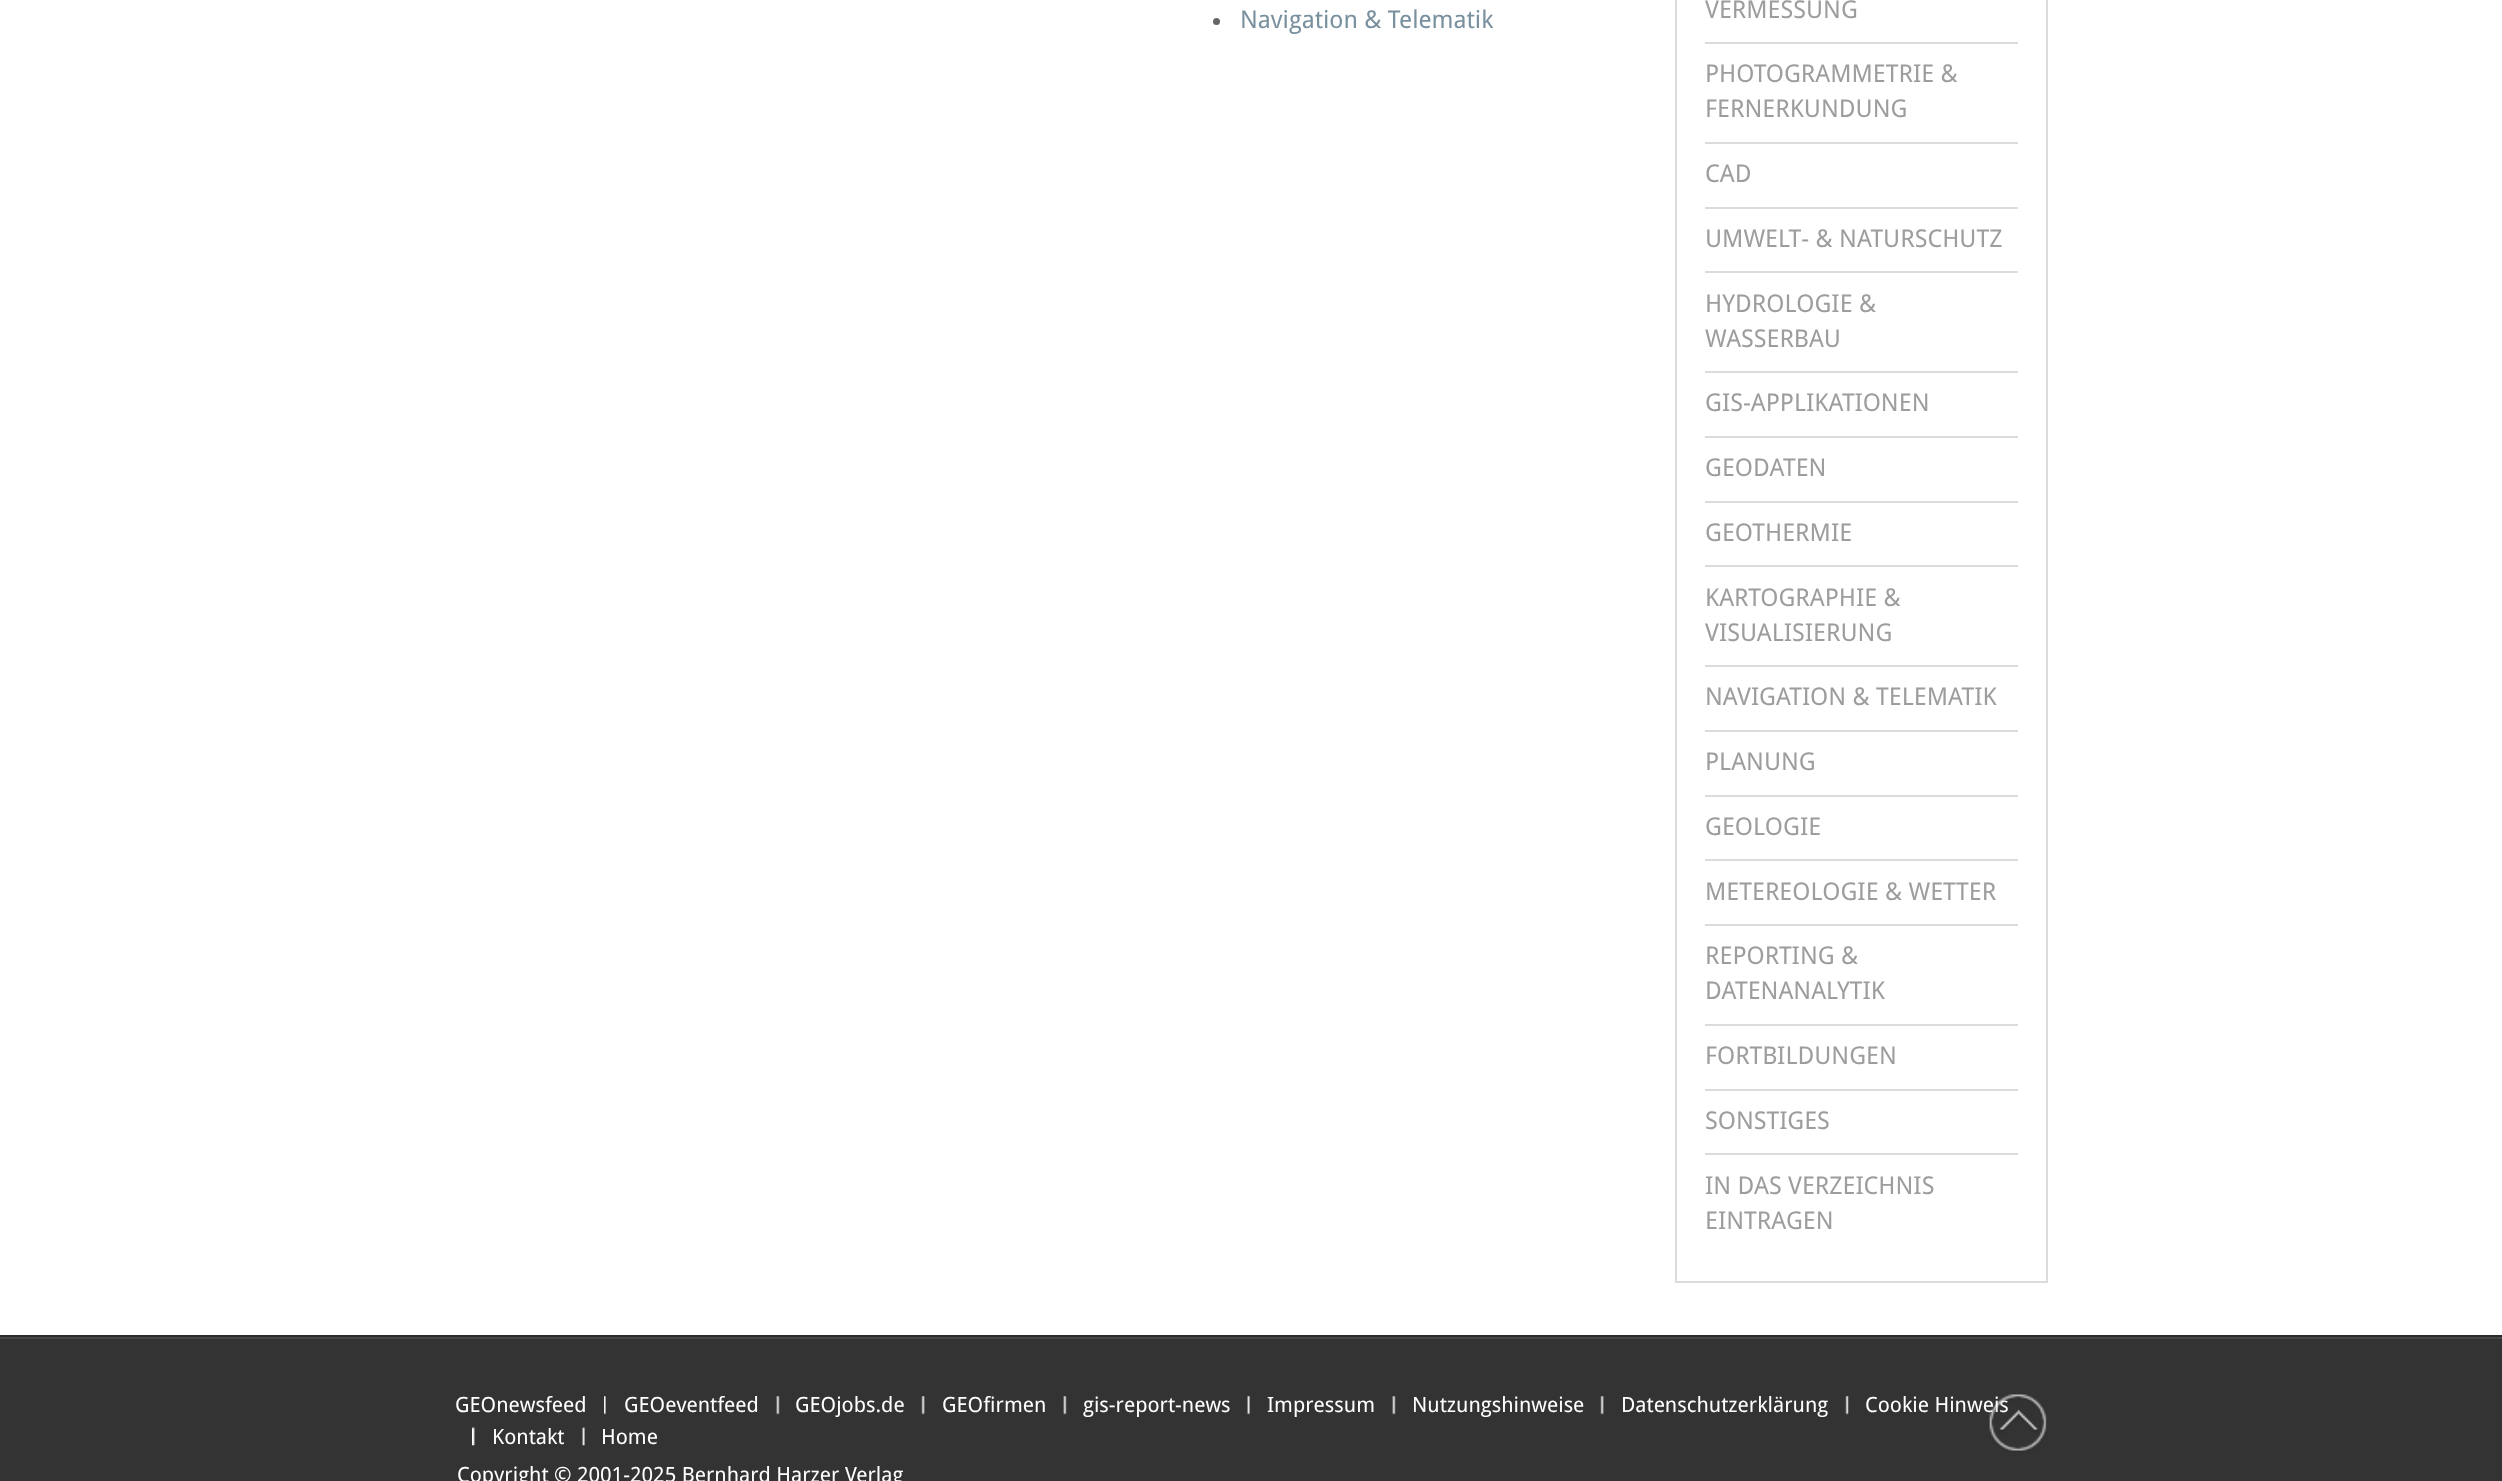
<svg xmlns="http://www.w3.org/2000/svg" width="2502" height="1481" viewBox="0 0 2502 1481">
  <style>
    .t1 { font: 24.5px Droid Sans; fill: #79909f; }
    .t2 { font: 24.5px Droid Sans; fill: #9d9d9d; }
    .t3 { font: 21px Droid Sans; fill: #fff; }
  </style>
  <rect width="100%" height="100%" fill="#333"/>
  <rect x="0" y="0" width="2502" height="1335" fill="#fff"/>
  <circle cx="1216.5" cy="21.5" r="3.5" fill="#666"/>
  <text x="1240" y="28" class="t1">Navigation &amp; Telematik</text>
  <rect x="1676" y="-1" width="371" height="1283" fill="none" stroke="#dbdbdb" stroke-width="2"/>
  <text x="1705" y="18" class="t2">VERMESSUNG</text>
  <rect x="1705" y="42" width="313" height="2" fill="#dbdbdb"/>
  <text x="1705" y="82" class="t2">PHOTOGRAMMETRIE &amp;</text>
  <text x="1705" y="117" class="t2">FERNERKUNDUNG</text>
  <rect x="1705" y="142" width="313" height="2" fill="#dbdbdb"/>
  <text x="1705" y="182" class="t2">CAD</text>
  <rect x="1705" y="207" width="313" height="2" fill="#dbdbdb"/>
  <text x="1705" y="247" class="t2">UMWELT- &amp; NATURSCHUTZ</text>
  <rect x="1705" y="271" width="313" height="2" fill="#dbdbdb"/>
  <text x="1705" y="312" class="t2">HYDROLOGIE &amp;</text>
  <text x="1705" y="347" class="t2">WASSERBAU</text>
  <rect x="1705" y="371" width="313" height="2" fill="#dbdbdb"/>
  <text x="1705" y="411" class="t2">GIS-APPLIKATIONEN</text>
  <rect x="1705" y="436" width="313" height="2" fill="#dbdbdb"/>
  <text x="1705" y="476" class="t2">GEODATEN</text>
  <rect x="1705" y="501" width="313" height="2" fill="#dbdbdb"/>
  <text x="1705" y="541" class="t2">GEOTHERMIE</text>
  <rect x="1705" y="565" width="313" height="2" fill="#dbdbdb"/>
  <text x="1705" y="606" class="t2">KARTOGRAPHIE &amp;</text>
  <text x="1705" y="641" class="t2">VISUALISIERUNG</text>
  <rect x="1705" y="665" width="313" height="2" fill="#dbdbdb"/>
  <text x="1705" y="705" class="t2">NAVIGATION &amp; TELEMATIK</text>
  <rect x="1705" y="730" width="313" height="2" fill="#dbdbdb"/>
  <text x="1705" y="770" class="t2">PLANUNG</text>
  <rect x="1705" y="795" width="313" height="2" fill="#dbdbdb"/>
  <text x="1705" y="835" class="t2">GEOLOGIE</text>
  <rect x="1705" y="859" width="313" height="2" fill="#dbdbdb"/>
  <text x="1705" y="900" class="t2">METEREOLOGIE &amp; WETTER</text>
  <rect x="1705" y="924" width="313" height="2" fill="#dbdbdb"/>
  <text x="1705" y="964" class="t2">REPORTING &amp;</text>
  <text x="1705" y="999" class="t2">DATENANALYTIK</text>
  <rect x="1705" y="1024" width="313" height="2" fill="#dbdbdb"/>
  <text x="1705" y="1064" class="t2">FORTBILDUNGEN</text>
  <rect x="1705" y="1089" width="313" height="2" fill="#dbdbdb"/>
  <text x="1705" y="1129" class="t2">SONSTIGES</text>
  <rect x="1705" y="1153" width="313" height="2" fill="#dbdbdb"/>
  <text x="1705" y="1194" class="t2">IN DAS VERZEICHNIS</text>
  <text x="1705" y="1229" class="t2">EINTRAGEN</text>
  <rect x="0" y="1337" width="2502" height="2" fill="#474747"/>
  <rect x="0" y="1335" width="2502" height="2" fill="#2b2b2b"/>
  <text x="455" y="1412" class="t3">GEOnewsfeed</text>
  <image x="604" y="1396" width="2" height="19" href="images/1.png"/>
  <text x="624" y="1412" class="t3">GEOeventfeed</text>
  <image x="776" y="1396" width="4" height="19" href="images/2.png"/>
  <text x="795" y="1412" class="t3">GEOjobs.de</text>
  <image x="921" y="1396" width="4" height="19" href="images/3.png"/>
  <text x="942" y="1412" class="t3">GEOfirmen</text>
  <image x="1063" y="1396" width="4" height="19" href="images/2.png"/>
  <text x="1083" y="1412" class="t3">gis-report-news</text>
  <image x="1247" y="1396" width="3" height="19" href="images/4.png"/>
  <text x="1267" y="1412" class="t3">Impressum</text>
  <image x="1392" y="1396" width="4" height="19" href="images/2.png"/>
  <text x="1412" y="1412" class="t3">Nutzungshinweise</text>
  <image x="1600" y="1396" width="4" height="19" href="images/3.png"/>
  <text x="1621" y="1412" class="t3">Datenschutzerklärung</text>
  <image x="1845" y="1396" width="4" height="19" href="images/5.png"/>
  <text x="1865" y="1412" class="t3">Cookie Hinweis</text>
  <image x="472" y="1427" width="3" height="19" href="images/6.png"/>
  <text x="492" y="1444" class="t3">Kontakt</text>
  <image x="582" y="1427" width="3" height="19" href="images/7.png"/>
  <text x="601" y="1444" class="t3">Home</text>
  <image x="1989" y="1394" width="58" height="58" href="images/8.png"/>
  <text x="457" y="1482" class="t3">Copyright © 2001-2025 Bernhard Harzer Verlag</text>
</svg>
